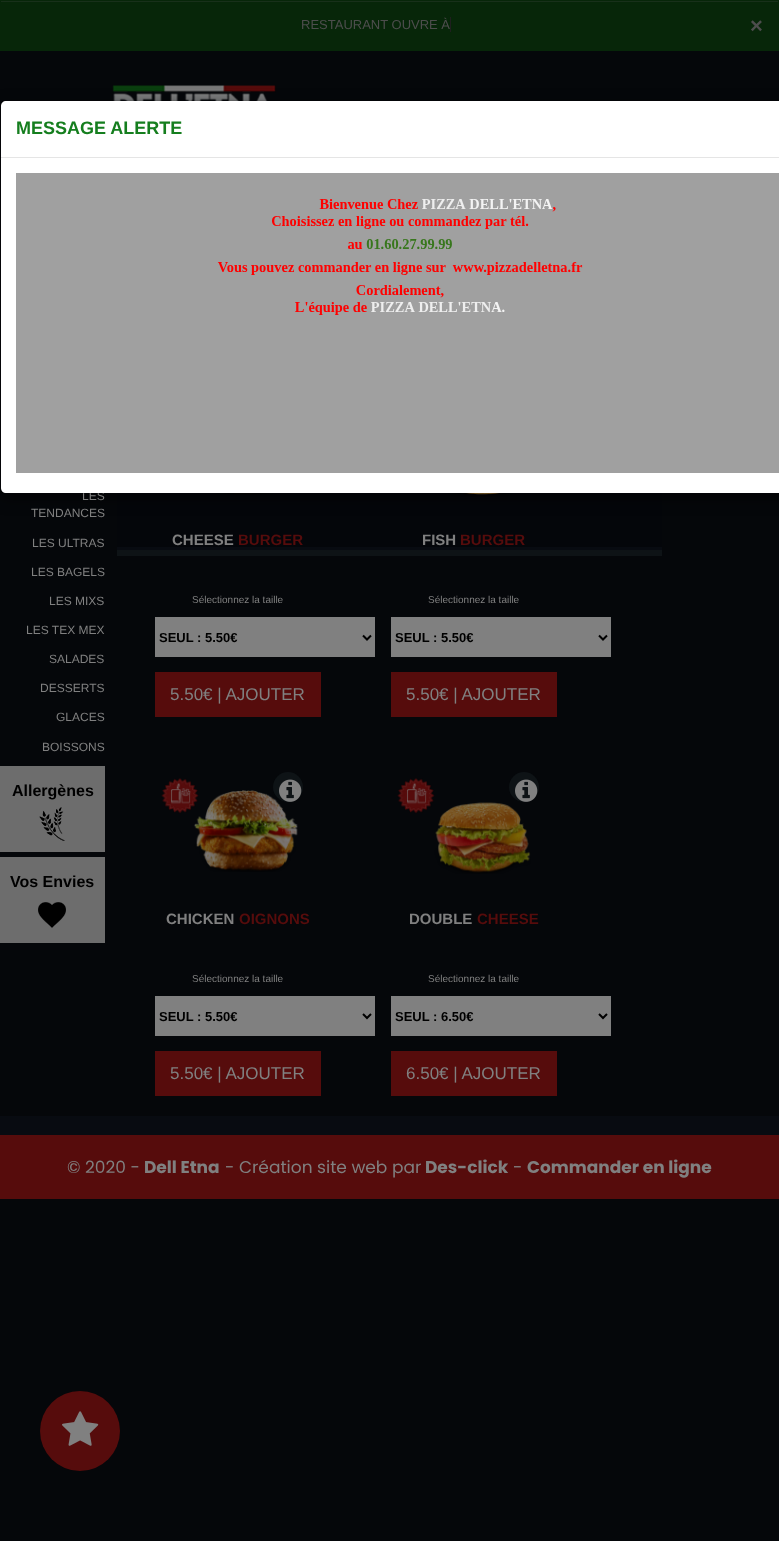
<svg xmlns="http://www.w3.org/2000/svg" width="779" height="1541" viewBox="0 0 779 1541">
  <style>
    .t1 { font: 13px Liberation Sans; fill: #4d4d4d; }
    .t2 { font: bold 22px Liberation Sans; fill: #4d4d4d; }
    .t3 { font: 12px Liberation Sans; fill: #808080; }
    .t4 { font: bold 18px Liberation Sans; fill: #157e1e; }
    .t5 { font: bold 16px Liberation Sans; fill: #000; }
    .t6 { font: bold 15px Liberation Sans; fill: #808080; }
    .t7 { font: bold 15px Liberation Sans; fill: #560c0c; }
    .t8 { font: 10px Liberation Sans; fill: #808080; }
    .t9 { font: bold 13px Liberation Sans; fill: #000; }
    .t10 { font: 17px Liberation Sans; fill: #808080; }
    .t11 { font: 17px Poppins; fill: #808080; }
    .t12 { font: bold 17px Poppins; fill: #808080; }
  </style>
  <defs>
    <clipPath id="clip1"><path d="M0 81H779V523H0ZM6 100H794C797.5 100 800 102.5 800 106V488C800 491.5 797.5 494 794 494H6C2.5 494 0 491.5 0 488V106C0 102.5 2.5 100 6 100Z" clip-rule="evenodd"/></clipPath>
  </defs>
  <rect width="100%" height="100%" fill="#05070a"/>
  <rect x="0" y="0" width="779" height="51" fill="#072609"/>
  <rect x="1" y="1" width="777" height="1" fill="#18301a"/>
  <text x="301" y="29" class="t1">RESTAURANT OUVRE À</text>
  <rect x="450" y="17" width="1" height="15" fill="#1f1f1f"/>
  <text x="750" y="33" class="t2">×</text>
  <image x="117" y="100" width="545" height="450" href="images/2.png"/>
  <image x="112" y="85" width="164" height="16" href="images/3.png"/>
  <image x="216" y="493" width="58" height="2" href="images/6.png"/>
  <image x="448" y="493" width="65" height="4" href="images/7.png"/>
  <g clip-path="url(#clip1)">
    <rect x="0" y="105" width="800" height="394" rx="6" fill="#00000080" filter="blur(7.5px)"/>
  </g>
  <text x="82" y="500" class="t3">LES</text>
  <path d="M6 101H779V493H6C3 493 1 491 1 488V106C1 103 3 101 6 101Z" fill="#fff"/>
  <rect x="0.5" y="100.5" width="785" height="393" rx="5.5" fill="none" stroke="#00000033"/>
  <rect x="1" y="157" width="778" height="1" fill="#e5e5e5"/>
  <text x="16" y="134" class="t4">MESSAGE ALERTE</text>
  <image x="16" y="173" width="763" height="300" href="images/1.png"/>
  <rect x="117" y="550" width="545" height="6" fill="#0e1316"/>
  <text x="31" y="517" class="t3">TENDANCES</text>
  <text x="32" y="547" class="t3">LES ULTRAS</text>
  <text x="31" y="576" class="t3">LES BAGELS</text>
  <text x="49" y="605" class="t3">LES MIXS</text>
  <text x="26" y="634" class="t3">LES TEX MEX</text>
  <text x="49" y="663" class="t3">SALADES</text>
  <text x="40" y="692" class="t3">DESSERTS</text>
  <text x="56" y="721" class="t3">GLACES</text>
  <text x="42" y="751" class="t3">BOISSONS</text>
  <rect x="0" y="766" width="105" height="86" fill="#6d6d6d"/>
  <text x="12" y="796" class="t5">Allergènes</text>
  <image x="39" y="807" width="26" height="34" href="images/4.png"/>
  <rect x="0" y="857" width="105" height="86" fill="#6d6d6d"/>
  <text x="10" y="887" class="t5">Vos Envies</text>
  <image x="38" y="902" width="28" height="26" href="images/5.png"/>
  <text x="172" y="545" class="t6">CHEESE</text>
  <text x="238" y="545" class="t7">BURGER</text>
  <text x="192" y="603" class="t8">Sélectionnez la taille</text>
  <rect x="155" y="617" width="220" height="40" fill="#808080"/>
  <path d="M363 635.5L367 639.5L371 635.5" fill="none" stroke="#000" stroke-width="2"/>
  <text x="159" y="642" class="t9">SEUL : 5.50€</text>
  <rect x="155" y="672" width="166" height="45" fill="#560c0c"/>
  <text x="170" y="700" class="t10">5.50€ | AJOUTER</text>
  <text x="422" y="545" class="t6">FISH</text>
  <text x="460" y="545" class="t7">BURGER</text>
  <text x="428" y="603" class="t8">Sélectionnez la taille</text>
  <rect x="391" y="617" width="220" height="40" fill="#808080"/>
  <path d="M599 635.5L603 639.5L607 635.5" fill="none" stroke="#000" stroke-width="2"/>
  <text x="395" y="642" class="t9">SEUL : 5.50€</text>
  <rect x="391" y="672" width="166" height="45" fill="#560c0c"/>
  <text x="406" y="700" class="t10">5.50€ | AJOUTER</text>
  <image x="161" y="778" width="137" height="94" href="images/9.png"/>
  <circle cx="288" cy="787" r="15" fill="#0e1316"/>
  <image x="279" y="779" width="23" height="23" href="images/8.png"/>
  <text x="166" y="924" class="t6">CHICKEN</text>
  <text x="239" y="924" class="t7">OIGNONS</text>
  <text x="192" y="982" class="t8">Sélectionnez la taille</text>
  <rect x="155" y="996" width="220" height="40" fill="#808080"/>
  <path d="M363 1014L367 1018L371 1014" fill="none" stroke="#000" stroke-width="2"/>
  <text x="159" y="1021" class="t9">SEUL : 5.50€</text>
  <rect x="155" y="1051" width="166" height="45" fill="#560c0c"/>
  <text x="170" y="1079" class="t10">5.50€ | AJOUTER</text>
  <image x="397" y="778" width="134" height="96" href="images/10.png"/>
  <circle cx="524" cy="787" r="15" fill="#0e1316"/>
  <image x="515" y="779" width="23" height="23" href="images/8.png"/>
  <text x="409" y="924" class="t6">DOUBLE</text>
  <text x="477" y="924" class="t7">CHEESE</text>
  <text x="428" y="982" class="t8">Sélectionnez la taille</text>
  <rect x="391" y="996" width="220" height="40" fill="#808080"/>
  <path d="M599 1014L603 1018L607 1014" fill="none" stroke="#000" stroke-width="2"/>
  <text x="395" y="1021" class="t9">SEUL : 6.50€</text>
  <rect x="391" y="1051" width="166" height="45" fill="#560c0c"/>
  <text x="406" y="1079" class="t10">6.50€ | AJOUTER</text>
  <circle cx="80" cy="1431" r="40" fill="#560c0c"/>
  <image x="62" y="1411" width="37" height="35" href="images/11.png"/>
  <rect x="0" y="1116" width="779" height="19" fill="#080b11"/>
  <rect x="0" y="1135" width="779" height="64" fill="#560c0c"/>
  <text x="67" y="1173" class="t11">© 2020 -</text>
  <text x="144" y="1173" class="t12">Dell Etna</text>
  <text x="225" y="1173" class="t11">- Création site web par</text>
  <text x="425" y="1173" class="t12">Des-click</text>
  <text x="513" y="1173" class="t11">-</text>
  <text x="527" y="1173" class="t12">Commander en ligne</text>
</svg>
